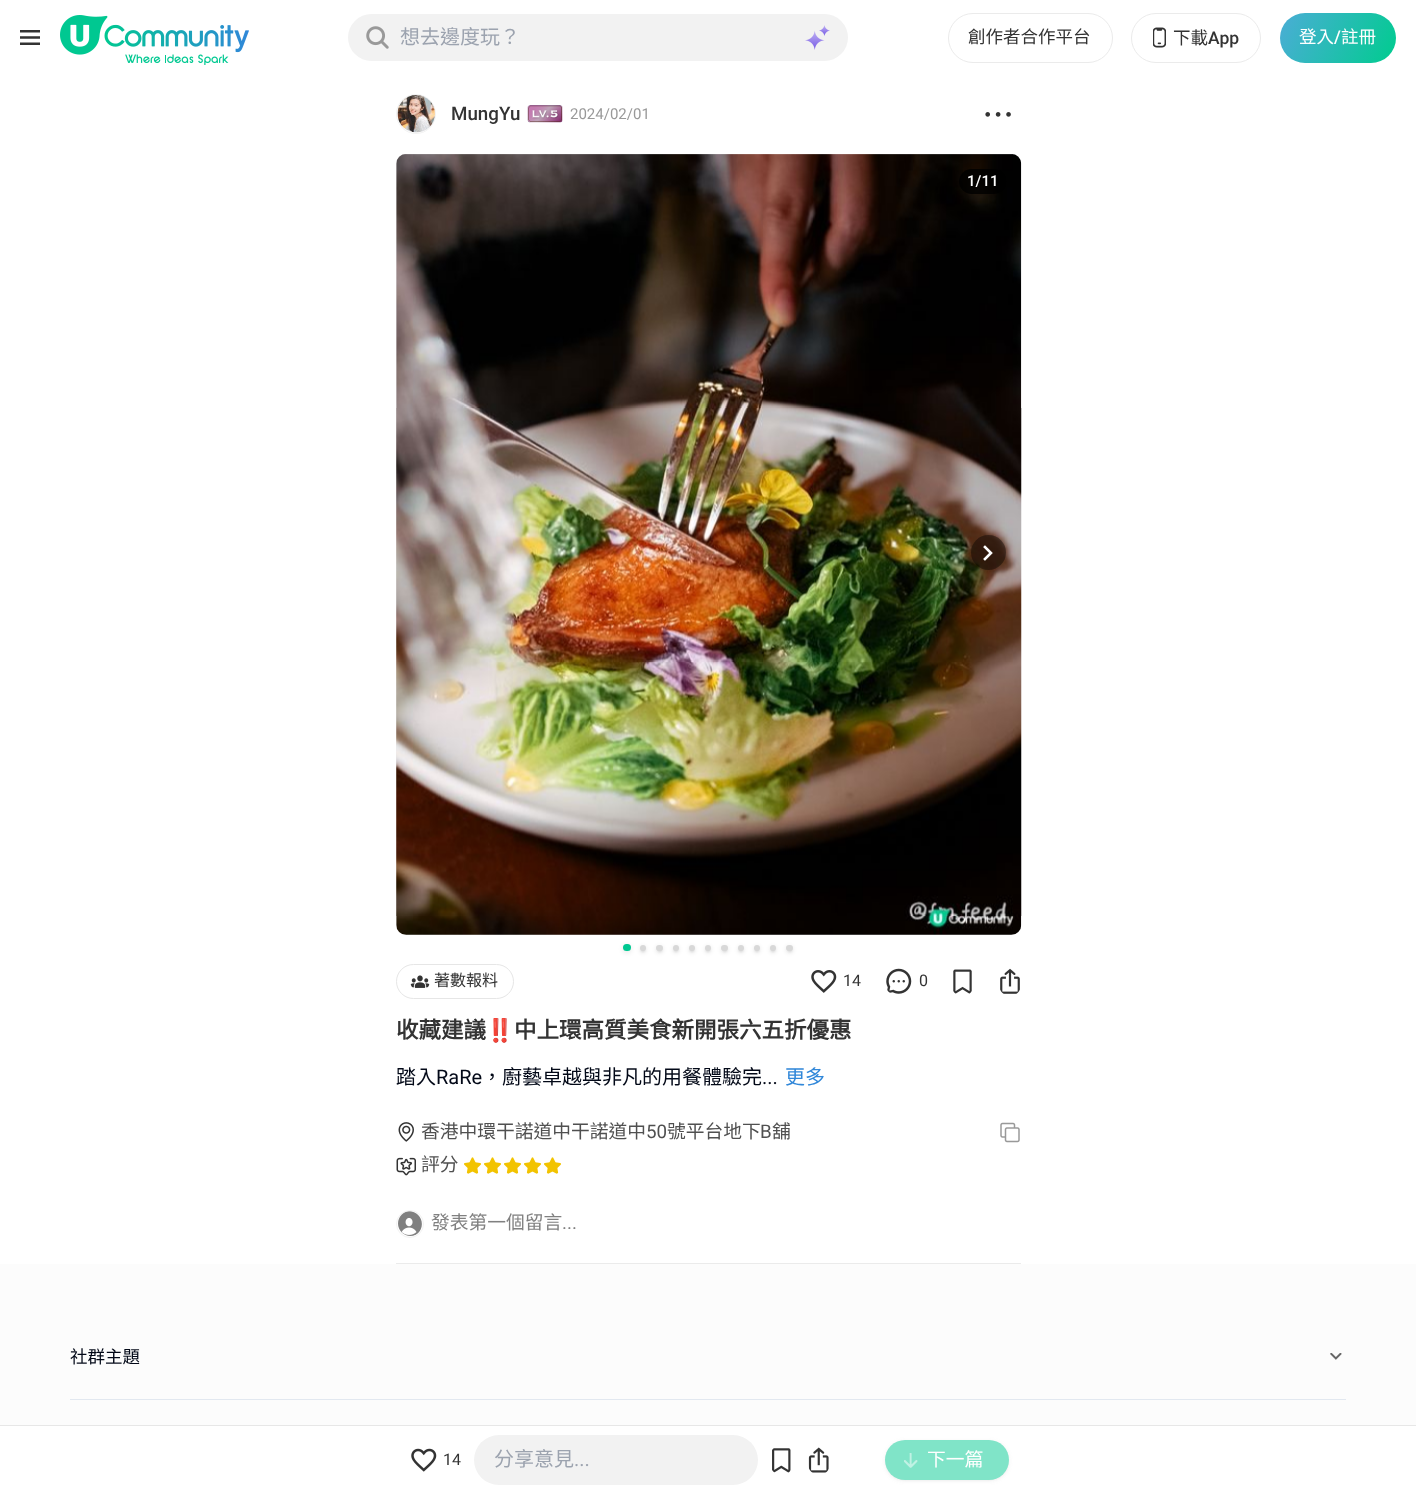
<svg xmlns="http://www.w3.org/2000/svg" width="1416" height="1493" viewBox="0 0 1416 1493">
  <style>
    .t1 { font: 20px Noto Sans CJK HK; fill: #9ca3af; }
    .t2 { font: 17.5px Noto Sans CJK HK; fill: #333; }
    .t3 { font: 500 17.5px Roboto; fill: #333; }
    .t4 { font: 17.5px Noto Sans CJK HK; fill: #fff; }
    .t5 { font: 500 17.5px Roboto; fill: #fff; }
    .t6 { font: 500 18.75px Roboto; fill: #333; }
    .t7 { font: 15px Roboto; fill: #999; }
    .t8 { font: 500 15px Roboto; fill: #fff; }
    .t9 { font: 16px Noto Sans CJK HK; fill: #333; }
    .t10 { font: 16px Roboto; fill: #333; }
    .t11 { font: bold 22.5px Noto Sans CJK HK; fill: #333; }
    .t12 { font: bold 22.5px Noto Color Emoji; fill: #333; }
    .t13 { font: 20px Noto Sans CJK HK; fill: #020817; }
    .t14 { font: 20px Roboto; fill: #020817; }
    .t15 { font: 20px Noto Sans CJK HK; fill: #3087d9; }
    .t16 { font: 18.75px Noto Sans CJK HK; fill: #505050; }
    .t17 { font: 18.75px Roboto; fill: #505050; }
    .t18 { font: 18.75px Noto Sans CJK HK; fill: #808080; }
    .t19 { font: 18.75px Roboto; fill: #808080; }
    .t20 { font: 17.5px Noto Sans CJK HK; fill: #020817; }
    .t21 { font: 20px Roboto; fill: #9ca3af; }
    .t22 { font: 18.75px Noto Sans CJK HK; fill: #fff; }
  </style>
  <defs>
    <linearGradient id="g1" gradientUnits="userSpaceOnUse" x1="1281" y1="11" x2="1395" y2="64"><stop offset="0" stop-color="#4badd6"/><stop offset="1" stop-color="#00cc8f"/></linearGradient>
  </defs>
  <rect width="100%" height="100%" fill="#fff"/>
  <image x="20" y="30" width="20" height="15" href="images/1.png"/>
  <image x="60" y="15" width="189" height="50" href="images/2.png"/>
  <rect x="348" y="14" width="500" height="47" rx="23.5" fill="#f2f2f2"/>
  <image x="366" y="26" width="23" height="23" href="images/3.png"/>
  <text x="400" y="44" class="t1">想去邊度玩？</text>
  <image x="805" y="25" width="25" height="25" href="images/4.png"/>
  <rect x="948.5" y="13.5" width="164" height="49" rx="24.5" fill="none" stroke="#ebebeb"/>
  <text x="968" y="43" class="t2">創作者合作平台</text>
  <rect x="1131.5" y="13.5" width="129" height="49" rx="24.5" fill="none" stroke="#ebebeb"/>
  <image x="1153" y="27" width="13" height="21" href="images/5.png"/>
  <text x="1173" y="44" class="t2">下載</text>
  <text x="1208" y="44" class="t3">App</text>
  <rect x="1280" y="13" width="116" height="50" rx="25" fill="url(#g1)"/>
  <text x="1299" y="43" class="t4">登入</text>
  <text x="1334" y="43" class="t5">/</text>
  <text x="1341" y="43" class="t4">註冊</text>
  <rect x="396" y="1263" width="625" height="1" fill="#ebebeb"/>
  <circle cx="416" cy="114" r="19.5" fill="none" stroke="#f2f2f2"/>
  <image x="397" y="95" width="38" height="38" href="images/6.png"/>
  <text x="451" y="120" class="t6">MungYu</text>
  <image x="527" y="105" width="36" height="18" href="images/7.png"/>
  <text x="570" y="119" class="t7">2024/02/01</text>
  <image x="985" y="112" width="26" height="5" href="images/8.png"/>
  <rect x="396" y="154" width="625" height="781" rx="10" fill="#e8e9ea"/>
  <image x="396" y="154" width="626" height="781" href="images/9.png"/>
  <rect x="959" y="169" width="47" height="25" rx="12.5" fill="#000000cc"/>
  <text x="967" y="186" class="t8">1/11</text>
  <circle cx="988.5" cy="552.5" r="17.5" fill="#00000066"/>
  <image x="983" y="545" width="10" height="16" href="images/10.png"/>
  <rect x="623" y="945" width="8" height="8" rx="4" fill="#0000001a" filter="blur(2.5px)"/>
  <rect x="623" y="944" width="8" height="7" rx="3.5" fill="#00c891"/>
  <rect x="641" y="948" width="4" height="4" rx="2" fill="#0000001a" filter="blur(1px)"/>
  <rect x="640" y="946" width="6" height="7" rx="3" fill="#0000001a" filter="blur(2px)"/>
  <circle cx="643" cy="948" r="3" fill="#d8d8d8"/>
  <rect x="658" y="948" width="4" height="4" rx="2" fill="#0000001a" filter="blur(1px)"/>
  <rect x="656" y="946" width="7" height="7" rx="3.5" fill="#0000001a" filter="blur(2px)"/>
  <rect x="656" y="945" width="7" height="6" rx="3" fill="#d8d8d8"/>
  <rect x="674" y="948" width="4" height="4" rx="2" fill="#0000001a" filter="blur(1px)"/>
  <rect x="673" y="946" width="6" height="7" rx="3" fill="#0000001a" filter="blur(2px)"/>
  <circle cx="676" cy="948" r="3" fill="#d8d8d8"/>
  <rect x="690" y="948" width="4" height="4" rx="2" fill="#0000001a" filter="blur(1px)"/>
  <rect x="689" y="946" width="6" height="7" rx="3" fill="#0000001a" filter="blur(2px)"/>
  <circle cx="692" cy="948" r="3" fill="#d8d8d8"/>
  <rect x="706" y="948" width="4" height="4" rx="2" fill="#0000001a" filter="blur(1px)"/>
  <rect x="705" y="946" width="6" height="7" rx="3" fill="#0000001a" filter="blur(2px)"/>
  <circle cx="708" cy="948" r="3" fill="#d8d8d8"/>
  <rect x="723" y="948" width="4" height="4" rx="2" fill="#0000001a" filter="blur(1px)"/>
  <rect x="721" y="946" width="7" height="7" rx="3.5" fill="#0000001a" filter="blur(2px)"/>
  <rect x="721" y="945" width="7" height="6" rx="3" fill="#d8d8d8"/>
  <rect x="739" y="948" width="4" height="4" rx="2" fill="#0000001a" filter="blur(1px)"/>
  <rect x="738" y="946" width="6" height="7" rx="3" fill="#0000001a" filter="blur(2px)"/>
  <circle cx="741" cy="948" r="3" fill="#d8d8d8"/>
  <rect x="755" y="948" width="4" height="4" rx="2" fill="#0000001a" filter="blur(1px)"/>
  <rect x="754" y="946" width="6" height="7" rx="3" fill="#0000001a" filter="blur(2px)"/>
  <circle cx="757" cy="948" r="3" fill="#d8d8d8"/>
  <rect x="771" y="948" width="4" height="4" rx="2" fill="#0000001a" filter="blur(1px)"/>
  <rect x="770" y="946" width="6" height="7" rx="3" fill="#0000001a" filter="blur(2px)"/>
  <circle cx="773" cy="948" r="3" fill="#d8d8d8"/>
  <rect x="788" y="948" width="4" height="4" rx="2" fill="#0000001a" filter="blur(1px)"/>
  <rect x="786" y="946" width="7" height="7" rx="3.5" fill="#0000001a" filter="blur(2px)"/>
  <rect x="786" y="945" width="7" height="6" rx="3" fill="#d8d8d8"/>
  <rect x="396.5" y="964.5" width="117" height="34" rx="17" fill="none" stroke="#e6e6e6"/>
  <image x="410" y="975" width="20" height="13" href="images/11.png"/>
  <text x="434" y="986" class="t9">著數報料</text>
  <image x="811" y="970" width="26" height="23" href="images/12.png"/>
  <text x="843" y="986" class="t10">14</text>
  <image x="886" y="968" width="26" height="26" href="images/13.png"/>
  <text x="919" y="986" class="t10">0</text>
  <image x="953" y="969" width="19" height="25" href="images/14.png"/>
  <image x="1000" y="968" width="20" height="26" href="images/15.png"/>
  <text x="396" y="1038" class="t11">收藏建議</text>
  <text x="486" y="1038" class="t12">‼️</text>
  <text x="514" y="1038" class="t11">中上環高質美食新開張六五折優惠</text>
  <text x="396" y="1084" class="t13">踏入</text>
  <text x="436" y="1084" class="t14">RaRe</text>
  <text x="482" y="1084" class="t13">，廚藝卓越與非凡的用餐體驗完</text>
  <text x="762" y="1084" class="t14">...</text>
  <text x="785" y="1084" class="t15">更多</text>
  <image x="398" y="1122" width="16" height="20" href="images/16.png"/>
  <text x="421" y="1138" class="t16">香港中環干諾道中干諾道中</text>
  <text x="646" y="1138" class="t17">50</text>
  <text x="667" y="1138" class="t16">號平台地下</text>
  <text x="760" y="1138" class="t17">B</text>
  <text x="772" y="1138" class="t16">舖</text>
  <image x="1000" y="1122" width="20" height="21" href="images/17.png"/>
  <image x="396" y="1157" width="20" height="19" href="images/18.png"/>
  <text x="421" y="1171" class="t16">評分</text>
  <image x="464" y="1157" width="17" height="17" href="images/19.png"/>
  <image x="484" y="1157" width="17" height="17" href="images/19.png"/>
  <image x="504" y="1157" width="17" height="17" href="images/19.png"/>
  <image x="524" y="1157" width="17" height="17" href="images/19.png"/>
  <image x="544" y="1157" width="17" height="17" href="images/19.png"/>
  <circle cx="410" cy="1224" r="13.5" fill="none" stroke="#f2f2f2"/>
  <image x="398" y="1211" width="24" height="25" href="images/20.png"/>
  <text x="431" y="1229" class="t18">發表第一個留言</text>
  <text x="562" y="1229" class="t19">...</text>
  <rect x="0" y="1264" width="1416" height="161" fill="#fcfcfc"/>
  <text x="70" y="1363" class="t20">社群主題</text>
  <image x="1330" y="1353" width="12" height="7" href="images/21.png"/>
  <rect x="70" y="1399" width="1276" height="1" fill="#e2e8f0"/>
  <rect x="0" y="1425" width="1416" height="1" fill="#e7e7e7"/>
  <image x="411" y="1448" width="26" height="24" href="images/22.png"/>
  <text x="443" y="1465" class="t10">14</text>
  <rect x="474" y="1435" width="284" height="50" rx="25" fill="#f2f2f2"/>
  <text x="494" y="1466" class="t1">分享意見</text>
  <text x="574" y="1466" class="t21">...</text>
  <image x="772" y="1448" width="19" height="25" href="images/23.png"/>
  <image x="808" y="1447" width="21" height="26" href="images/24.png"/>
  <rect x="886" y="1443" width="122" height="37" rx="18.5" fill="#8080801a" filter="blur(1px)"/>
  <rect x="885" y="1441" width="124" height="40" rx="20" fill="#8080801a" filter="blur(2px)"/>
  <rect x="885" y="1440" width="124" height="40" rx="20" fill="#80e4c8"/>
  <image x="904" y="1453" width="14" height="15" href="images/25.png"/>
  <text x="927" y="1466" class="t22">下一篇</text>
</svg>
